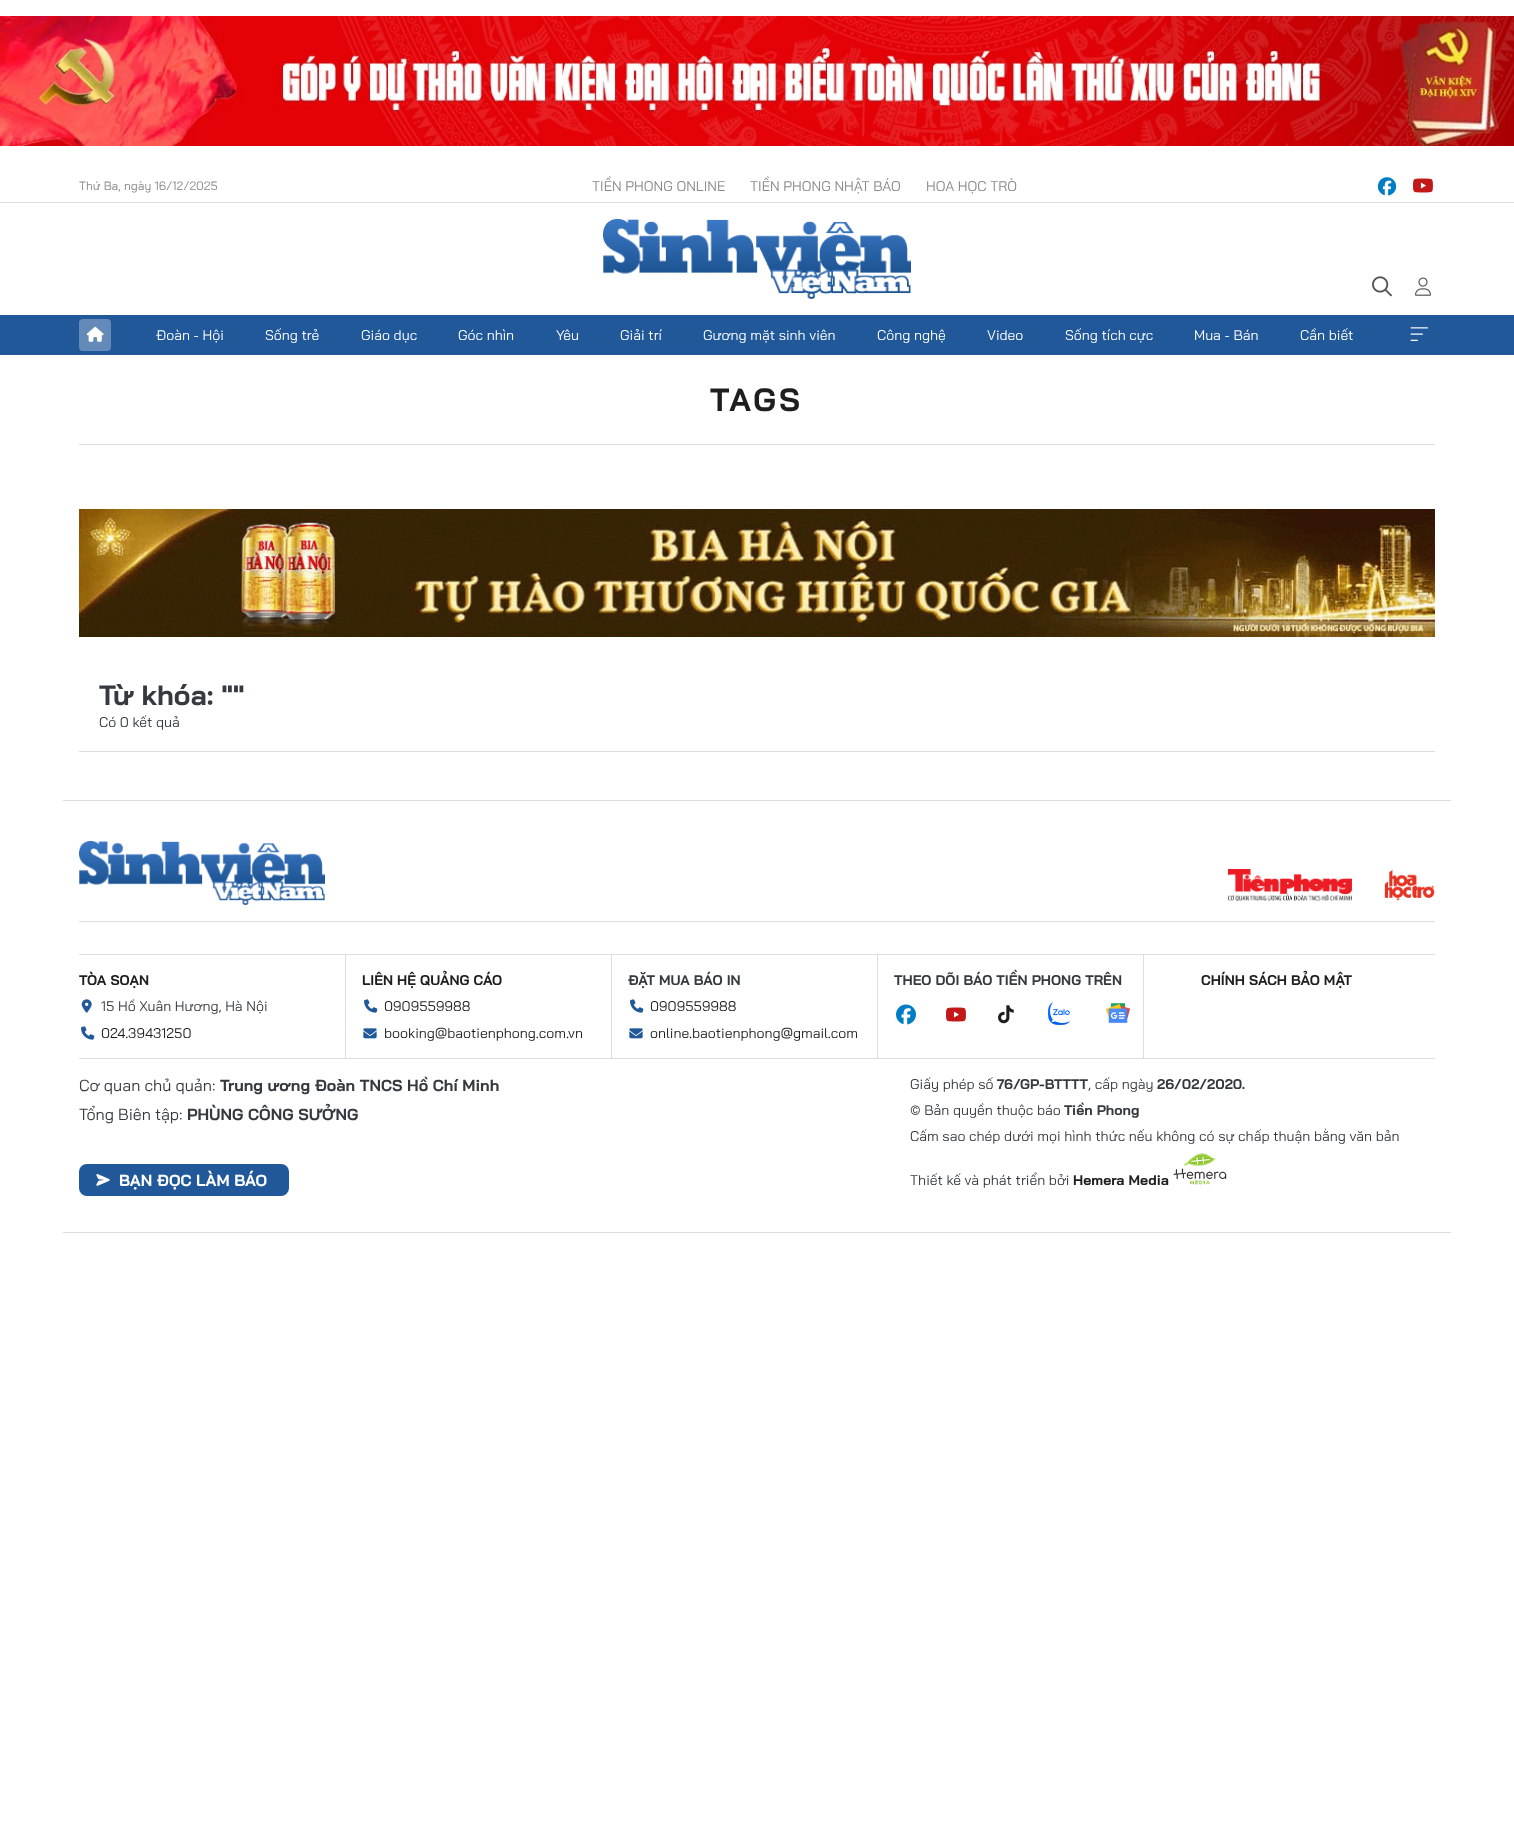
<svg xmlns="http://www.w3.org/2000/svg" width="1514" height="1823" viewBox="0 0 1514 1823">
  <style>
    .t1 { font: 12px Bai Jamjuree; fill: #888; }
    .t2 { font: 14px Bai Jamjuree; fill: #888; }
    .t3 { font: 14px Bai Jamjuree; fill: #fff; }
    .t4 { font: bold 32px Bai Jamjuree; letter-spacing: 3px; fill: #1e1e1e; }
    .t5 { font: bold 28px Bai Jamjuree; fill: #343a40; }
    .t6 { font: 14px Bai Jamjuree; fill: #343a40; }
    .t7 { font: bold 14px Bai Jamjuree; fill: #1e1e1e; }
    .t8 { font: 14px Bai Jamjuree; fill: #1e1e1e; }
    .t9 { font: bold 14px Bai Jamjuree; fill: #343a40; }
    .t10 { font: 16px Bai Jamjuree; fill: #343a40; }
    .t11 { font: bold 16px Bai Jamjuree; fill: #343a40; }
    .t12 { font: bold 16px Bai Jamjuree; fill: #fff; }
  </style>
  <rect width="100%" height="100%" fill="#fff"/>
  <image x="0" y="16" width="1514" height="130" href="images/1.png"/>
  <rect x="0" y="202" width="1514" height="1" fill="#ddd"/>
  <text x="79" y="190" class="t1">Thứ Ba, ngày 16/12/2025</text>
  <text x="592" y="191" class="t2">TIỀN PHONG ONLINE</text>
  <text x="750" y="191" class="t2">TIỀN PHONG NHẬT BÁO</text>
  <text x="926" y="191" class="t2">HOA HỌC TRÒ</text>
  <image x="1377" y="177" width="20" height="19" href="images/2.png"/>
  <image x="1413" y="178" width="20" height="15" href="images/3.png"/>
  <image x="603" y="219" width="308" height="80" href="images/4.png"/>
  <image x="1372" y="276" width="20" height="21" href="images/5.png"/>
  <image x="1415" y="277" width="16" height="19" href="images/6.png"/>
  <rect x="0" y="315" width="1514" height="40" fill="#205899"/>
  <rect x="79" y="319" width="32" height="32" rx="4" fill="#638ab8"/>
  <image x="86" y="326" width="18" height="16" href="images/7.png"/>
  <text x="156" y="340" class="t3">Đoàn - Hội</text>
  <text x="265" y="340" class="t3">Sống trẻ</text>
  <text x="361" y="340" class="t3">Giáo dục</text>
  <text x="458" y="340" class="t3">Góc nhìn</text>
  <text x="556" y="340" class="t3">Yêu</text>
  <text x="620" y="340" class="t3">Giải trí</text>
  <text x="703" y="340" class="t3">Gương mặt sinh viên</text>
  <text x="877" y="340" class="t3">Công nghệ</text>
  <text x="987" y="340" class="t3">Video</text>
  <text x="1065" y="340" class="t3">Sống tích cực</text>
  <text x="1194" y="340" class="t3">Mua - Bán</text>
  <text x="1300" y="340" class="t3">Cần biết</text>
  <image x="1410" y="327" width="18" height="14" href="images/8.png"/>
  <rect x="79" y="444" width="1356" height="1" fill="#ddd"/>
  <text x="710" y="411" class="t4">TAGS</text>
  <image x="79" y="509" width="1356" height="128" href="images/9.png"/>
  <rect x="79" y="751" width="1356" height="1" fill="#ddd"/>
  <text x="99" y="705" class="t5">Từ khóa: ""</text>
  <text x="99" y="727" class="t6">Có 0 kết quả</text>
  <rect x="63" y="800" width="1388" height="1" fill="#ddd"/>
  <rect x="63" y="1232" width="1388" height="1" fill="#ddd"/>
  <rect x="79" y="921" width="1356" height="1" fill="#ddd"/>
  <image x="79" y="841" width="246" height="64" href="images/10.png"/>
  <image x="1228" y="869" width="124" height="32" href="images/11.png"/>
  <image x="1384" y="869" width="51" height="32" href="images/12.png"/>
  <rect x="79" y="954" width="1356" height="1" fill="#ddd"/>
  <rect x="79" y="1058" width="1356" height="1" fill="#ddd"/>
  <text x="79" y="985" class="t7">TÒA SOẠN</text>
  <image x="81" y="999" width="11" height="14" href="images/13.png"/>
  <text x="101" y="1011" class="t6">15 Hồ Xuân Hương, Hà Nội</text>
  <image x="81" y="1026" width="14" height="14" href="images/14.png"/>
  <text x="101" y="1038" class="t8">024.39431250</text>
  <rect x="345" y="955" width="1" height="103" fill="#ddd"/>
  <text x="362" y="985" class="t7">LIÊN HỆ QUẢNG CÁO</text>
  <image x="364" y="999" width="14" height="14" href="images/14.png"/>
  <text x="384" y="1011" class="t8">0909559988</text>
  <image x="363" y="1028" width="14" height="11" href="images/15.png"/>
  <text x="384" y="1038" class="t8">booking@baotienphong.com.vn</text>
  <rect x="611" y="955" width="1" height="103" fill="#ddd"/>
  <text x="628" y="985" class="t9">ĐẶT MUA BÁO IN</text>
  <image x="630" y="999" width="14" height="14" href="images/14.png"/>
  <text x="650" y="1011" class="t8">0909559988</text>
  <image x="629" y="1028" width="14" height="11" href="images/15.png"/>
  <text x="650" y="1038" class="t8">online.baotienphong@gmail.com</text>
  <rect x="877" y="955" width="1" height="103" fill="#ddd"/>
  <text x="894" y="985" class="t9">THEO DÕI BÁO TIỀN PHONG TRÊN</text>
  <image x="896" y="1004" width="20" height="21" href="images/16.png"/>
  <image x="946" y="1007" width="20" height="15" href="images/3.png"/>
  <image x="998" y="1005" width="16" height="19" href="images/17.png"/>
  <image x="1048" y="1002" width="22" height="23" href="images/18.png"/>
  <image x="1106" y="1003" width="24" height="20" href="images/19.png"/>
  <rect x="1143" y="955" width="1" height="103" fill="#ddd"/>
  <text x="1201" y="985" class="t7">CHÍNH SÁCH BẢO MẬT</text>
  <text x="79" y="1091" class="t10">Cơ quan chủ quản:</text>
  <text x="220" y="1091" class="t11">Trung ương Đoàn TNCS Hồ Chí Minh</text>
  <text x="79" y="1120" class="t10">Tổng Biên tập:</text>
  <text x="187" y="1120" class="t11">PHÙNG CÔNG SƯỞNG</text>
  <rect x="79" y="1164" width="210" height="32" rx="8" fill="#205899"/>
  <image x="96" y="1174" width="14" height="12" href="images/20.png"/>
  <text x="119" y="1186" class="t12">BẠN ĐỌC LÀM BÁO</text>
  <text x="910" y="1089" class="t6">Giấy phép số</text>
  <text x="997" y="1089" class="t9">76/GP-BTTTT</text>
  <text x="1088" y="1089" class="t6">, cấp ngày</text>
  <text x="1157" y="1089" class="t9">26/02/2020.</text>
  <text x="910" y="1115" class="t6">© Bản quyền thuộc báo</text>
  <text x="1064" y="1115" class="t9">Tiền Phong</text>
  <text x="910" y="1141" class="t6">Cấm sao chép dưới mọi hình thức nếu không có sự chấp thuận bằng văn bản</text>
  <text x="910" y="1185" class="t6">Thiết kế và phát triển bởi</text>
  <text x="1073" y="1185" class="t7">Hemera Media</text>
  <image x="1173" y="1153" width="54" height="32" href="images/21.png"/>
</svg>
